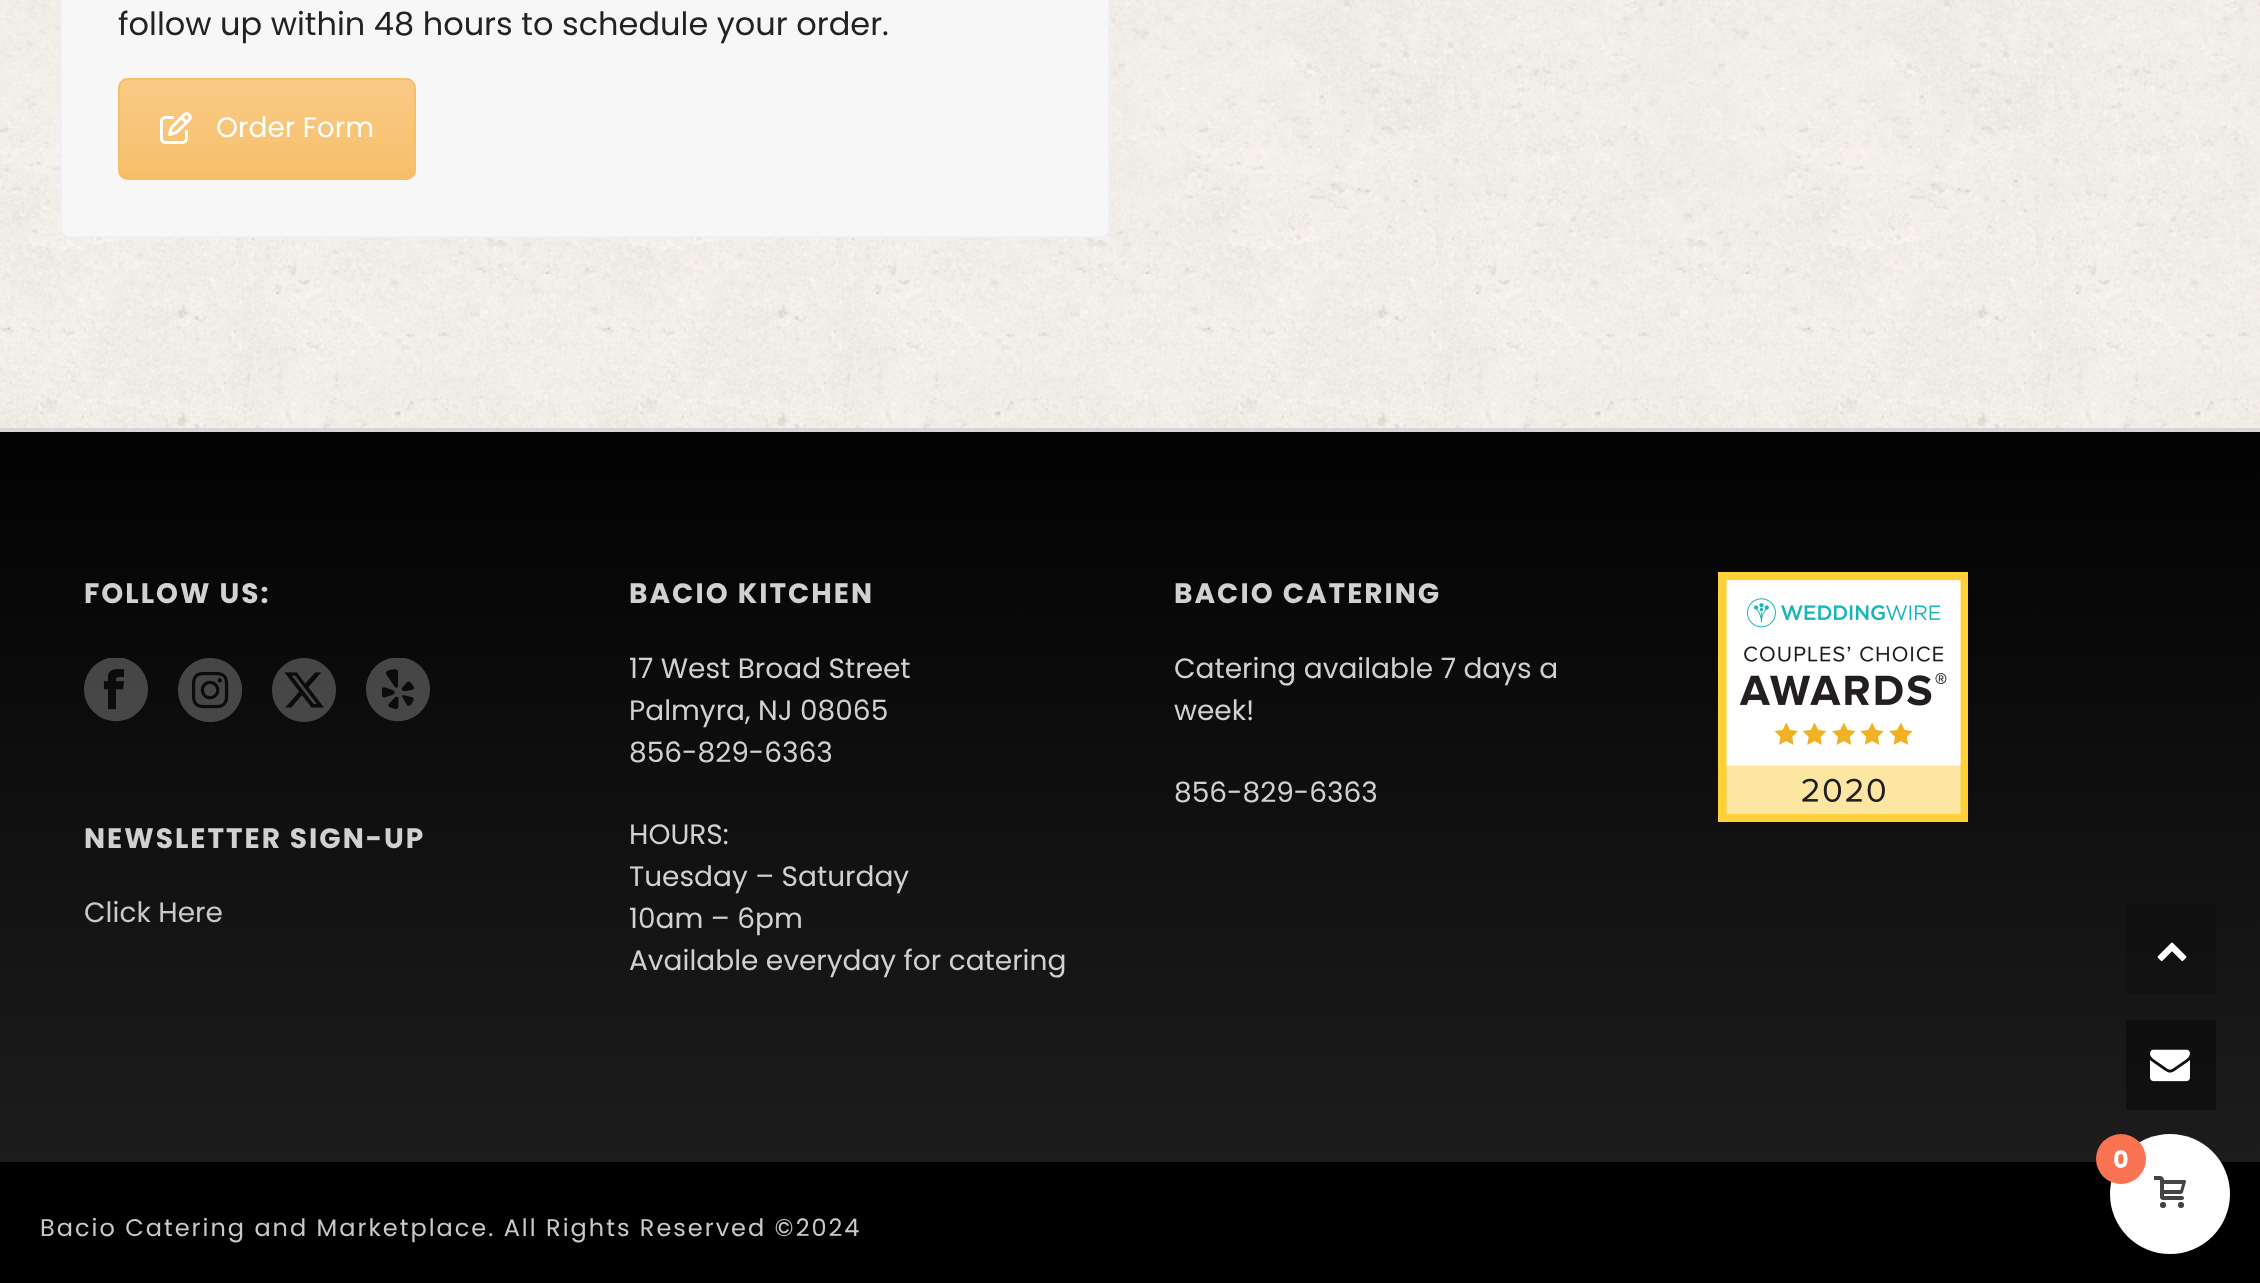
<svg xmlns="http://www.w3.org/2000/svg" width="2260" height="1283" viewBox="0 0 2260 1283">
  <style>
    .t1 { font: 32px Poppins; fill: #222; }
    .t2 { font: 28px Poppins; fill: #fff; }
    .t3 { font: bold 28px Poppins; letter-spacing: 2px; fill: #d1d1d1; }
    .t4 { font: 28px Poppins; fill: #c9c9c9; }
    .t5 { font: 28px Poppins; fill: #d1d1d1; }
    .t6 { font: 24px Poppins; letter-spacing: 2px; fill: #c9c9c9; }
    .t7 { font: bold 24px Poppins; fill: #fff; }
  </style>
  <defs>
    <clipPath id="clip1"><rect x="118" y="78" width="298" height="102" rx="10"/></clipPath>
    <linearGradient id="g1" gradientUnits="userSpaceOnUse" x1="267" y1="80" x2="267" y2="178"><stop offset="0" stop-color="#fff" stop-opacity="0.2"/><stop offset="1" stop-color="#fff" stop-opacity="0.01"/></linearGradient>
    <linearGradient id="g2" gradientUnits="userSpaceOnUse" x1="1130" y1="432" x2="1130" y2="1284"><stop offset="0" stop-color="#020202"/><stop offset="1" stop-color="#212121"/></linearGradient>
    <linearGradient id="g3" gradientUnits="userSpaceOnUse" x1="1130" y1="432" x2="1130" y2="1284"><stop offset="0" stop-color="#010101"/><stop offset="1" stop-color="#141414"/></linearGradient>
    <linearGradient id="g4" gradientUnits="userSpaceOnUse" x1="1130" y1="432" x2="1130" y2="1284"><stop offset="0" stop-color="#020202"/><stop offset="1" stop-color="#1a1a1a"/></linearGradient>
  </defs>
  <rect width="100%" height="100%" fill="#fff"/>
  <image x="0" y="0" width="2260" height="428" href="images/1.png"/>
  <rect x="61" y="-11" width="1048" height="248" rx="9" fill="#f7f7f7" stroke="#f0f0f0" stroke-width="2"/>
  <text x="118" y="35" class="t1">follow up within 48 hours to schedule your order.</text>
  <rect x="118" y="78" width="298" height="102" rx="10" fill="#f7be68"/>
  <g clip-path="url(#clip1)">
    <rect x="118" y="80" width="298" height="92" fill="url(#g1)"/>
  </g>
  <rect x="119" y="79" width="296" height="100" rx="9" fill="none" stroke="#f7be68" stroke-width="2"/>
  <image x="160" y="112" width="32" height="32" href="images/2.png"/>
  <text x="216" y="137" class="t2">Order Form</text>
  <rect x="0" y="432" width="2260" height="730" fill="url(#g2)"/>
  <rect x="2126" y="1020" width="90" height="90" fill="url(#g3)"/>
  <rect x="2126" y="904" width="90" height="90" fill="url(#g4)"/>
  <rect x="0" y="428" width="2260" height="4" fill="#d6d6d6"/>
  <text x="84" y="603" class="t3">FOLLOW US:</text>
  <image x="84" y="658" width="64" height="64" href="images/3.png"/>
  <image x="178" y="658" width="64" height="64" href="images/4.png"/>
  <image x="272" y="658" width="64" height="64" href="images/5.png"/>
  <image x="366" y="658" width="64" height="64" href="images/6.png"/>
  <text x="84" y="848" class="t3">NEWSLETTER SIGN-UP</text>
  <text x="84" y="922" class="t4">Click Here</text>
  <text x="629" y="603" class="t3">BACIO KITCHEN</text>
  <text x="629" y="678" class="t5">17 West Broad Street</text>
  <text x="629" y="720" class="t5">Palmyra, NJ 08065</text>
  <text x="629" y="762" class="t5">856-829-6363</text>
  <text x="629" y="844" class="t5">HOURS:</text>
  <text x="629" y="886" class="t5">Tuesday – Saturday</text>
  <text x="629" y="928" class="t5">10am – 6pm</text>
  <text x="629" y="970" class="t5">Available everyday for catering</text>
  <text x="1174" y="603" class="t3">BACIO CATERING</text>
  <text x="1174" y="678" class="t5">Catering available 7 days a</text>
  <text x="1174" y="720" class="t5">week!</text>
  <text x="1174" y="802" class="t5">856-829-6363</text>
  <image x="1718" y="572" width="250" height="250" href="images/7.png"/>
  <rect x="0" y="1162" width="2260" height="121" fill="#000"/>
  <text x="40" y="1236" class="t6">Bacio Catering and Marketplace. All Rights Reserved ©2024</text>
  <image x="2157" y="942" width="30" height="19" href="images/8.png"/>
  <image x="2150" y="1049" width="40" height="33" href="images/9.png"/>
  <circle cx="2170" cy="1194" r="60" fill="#fff"/>
  <circle cx="2121" cy="1159" r="25" fill="#f97352"/>
  <text x="2113" y="1168" class="t7">0</text>
  <image x="2154" y="1176" width="32" height="32" href="images/10.png"/>
</svg>
